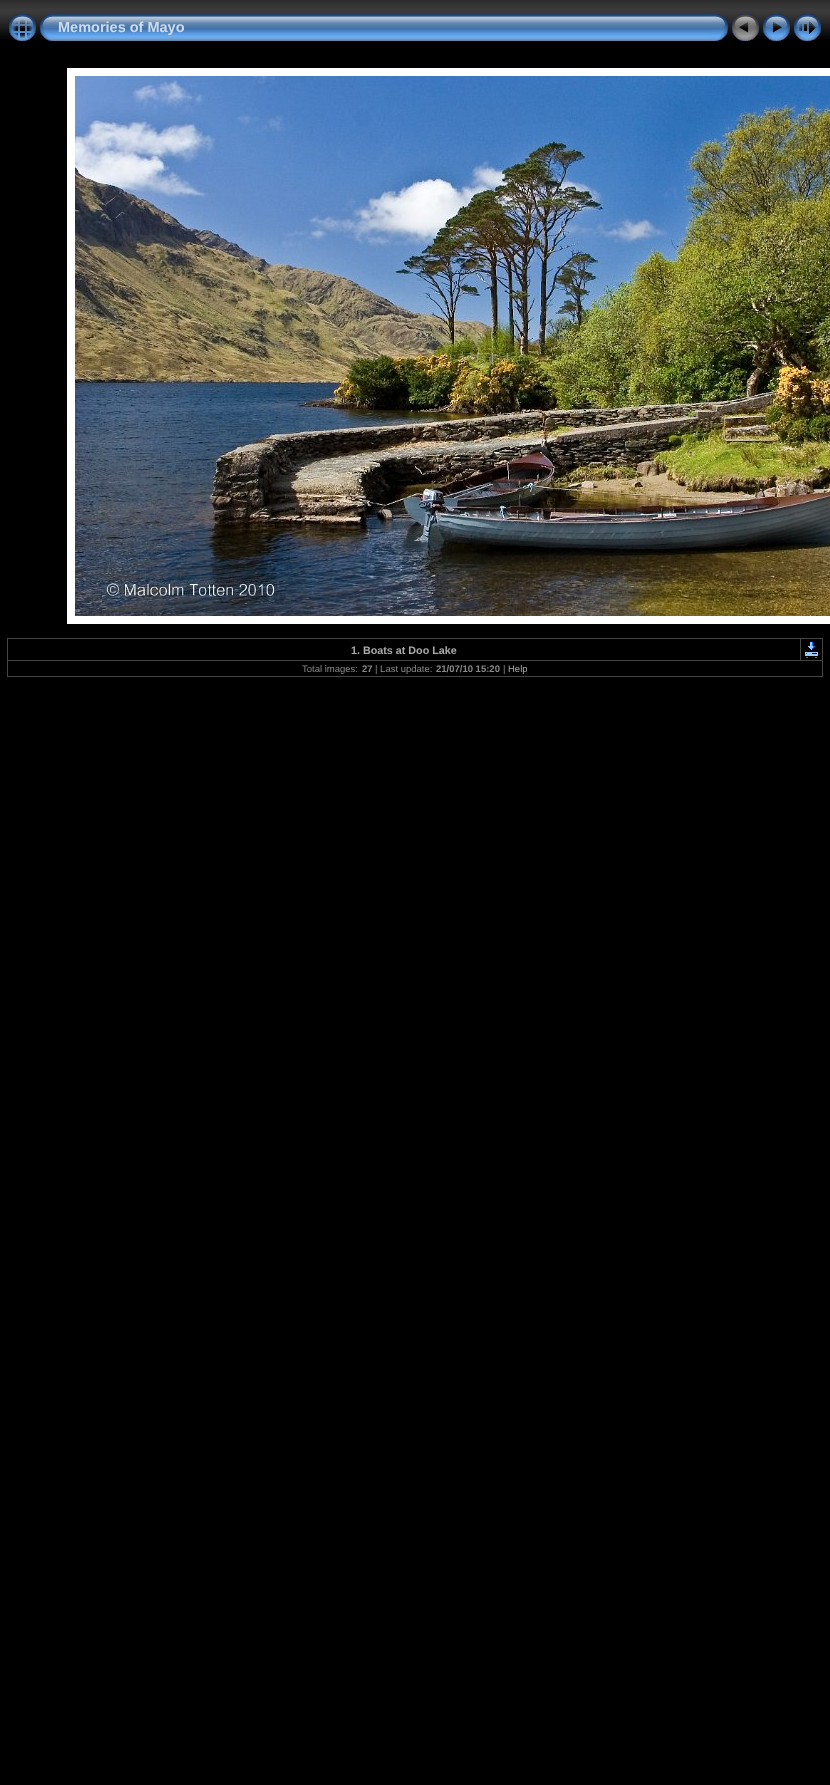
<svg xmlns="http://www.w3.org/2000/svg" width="830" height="1785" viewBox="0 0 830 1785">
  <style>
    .t1 { font: bold 14.5px Liberation Sans; fill: #ccdcee; }
    .t2 { font: bold 10.75px Liberation Sans; fill: #aaa; }
    .t3 { font: 9.5px Liberation Sans; fill: #888; }
    .t4 { font: bold 9.5px Liberation Sans; fill: #888; }
    .t5 { font: 9.5px Liberation Sans; fill: #aaa; }
  </style>
  <rect width="100%" height="100%" fill="#000"/>
  <image x="0" y="0" width="830" height="39" href="images/1.png"/>
  <image x="9" y="14" width="27" height="27" href="images/2.png"/>
  <image x="40" y="14" width="18" height="27" href="images/3.png"/>
  <image x="58" y="14" width="652" height="27" href="images/4.png"/>
  <text x="58" y="32" class="t1">Memories of Mayo</text>
  <image x="710" y="14" width="18" height="27" href="images/5.png"/>
  <image x="732" y="14" width="27" height="27" href="images/6.png"/>
  <image x="763" y="14" width="27" height="27" href="images/7.png"/>
  <image x="794" y="14" width="27" height="27" href="images/8.png"/>
  <rect x="71" y="72" width="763" height="548" fill="none" stroke="#fff" stroke-width="8"/>
  <image x="75" y="76" width="755" height="540" href="images/9.png"/>
  <rect x="7" y="638" width="816" height="1" fill="#444"/>
  <rect x="822" y="638" width="1" height="39" fill="#444"/>
  <rect x="7" y="676" width="816" height="1" fill="#444"/>
  <rect x="7" y="638" width="1" height="39" fill="#444"/>
  <text x="351" y="654" class="t2">1. Boats at Doo Lake</text>
  <rect x="7" y="660" width="816" height="1" fill="#444"/>
  <rect x="800" y="638" width="1" height="23" fill="#444"/>
  <image x="805" y="642" width="13" height="16" href="images/10.png"/>
  <text x="302" y="672" class="t3">Total images:</text>
  <text x="362" y="672" class="t4">27</text>
  <text x="375" y="672" class="t3">| Last update:</text>
  <text x="436" y="672" class="t4">21/07/10 15:20</text>
  <text x="503" y="672" class="t3">|</text>
  <text x="508" y="672" class="t5">Help</text>
</svg>
